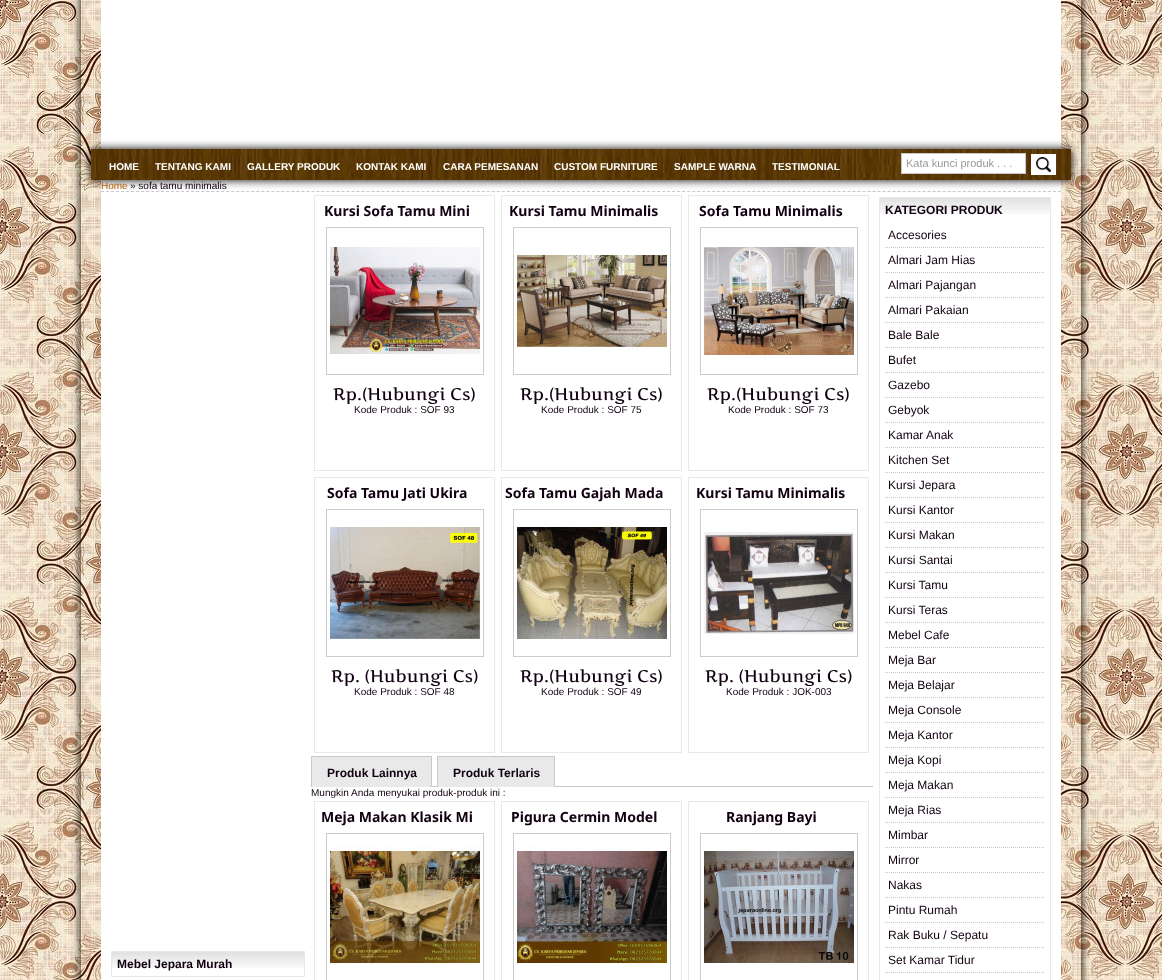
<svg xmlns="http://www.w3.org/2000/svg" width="1162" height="980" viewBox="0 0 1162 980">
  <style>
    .t1 { font: 11px Liberation Sans; fill: #999; }
    .t2 { font: bold 10px Liberation Sans; fill: #fff; }
    .t3 { font: 10px Liberation Sans; fill: #b45f04; }
    .t4 { font: 10px Liberation Sans; fill: #101; }
    .t5 { font: bold 12px Liberation Sans; fill: #101; }
    .t6 { font: bold 14px Noto Sans; fill: #101; }
    .t7 { font: 17px Artifika; fill: #101; }
    .t8 { font: 12px Liberation Sans; fill: #101; }
  </style>
  <defs>
    <clipPath id="clip1"><path d="M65 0H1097V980H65ZM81-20H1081V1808H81Z" clip-rule="evenodd"/></clipPath>
  </defs>
  <rect width="100%" height="100%" fill="#fff"/>
  <image x="0" y="0" width="1162" height="980" href="images/1.png"/>
  <g clip-path="url(#clip1)">
    <rect x="81" y="-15" width="1000" height="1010" fill="#000" filter="blur(5px)"/>
  </g>
  <rect x="101" y="0" width="960" height="980" fill="#fff"/>
  <path d="M101 191.5H1061" fill="none" stroke="#c8c8c8" stroke-dasharray="3 2.01"/>
  <rect x="314.5" y="195.5" width="180" height="275" fill="none" stroke="#e9e9e9"/>
  <rect x="501.5" y="195.5" width="180" height="275" fill="none" stroke="#e9e9e9"/>
  <rect x="688.5" y="195.5" width="180" height="275" fill="none" stroke="#e9e9e9"/>
  <rect x="91" y="149" width="980" height="31" fill="#000" filter="blur(5px)"/>
  <image x="91" y="149" width="980" height="31" href="images/3.png"/>
  <rect x="901.5" y="153.5" width="124" height="20" fill="#fff" stroke="#c8c8c8"/>
  <text x="906" y="167" class="t1">Kata kunci produk . . .</text>
  <rect x="1031" y="154" width="25" height="21" fill="#fff"/>
  <image x="1036" y="157" width="15" height="15" href="images/2.png"/>
  <text x="109" y="170" class="t2">HOME</text>
  <text x="155" y="170" class="t2">TENTANG KAMI</text>
  <text x="247" y="170" class="t2">GALLERY PRODUK</text>
  <text x="356" y="170" class="t2">KONTAK KAMI</text>
  <text x="443" y="170" class="t2">CARA PEMESANAN</text>
  <text x="554" y="170" class="t2">CUSTOM FURNITURE</text>
  <text x="674" y="170" class="t2">SAMPLE WARNA</text>
  <text x="772" y="170" class="t2">TESTIMONIAL</text>
  <text x="101" y="189" class="t3">Home</text>
  <text x="130" y="189" class="t4">» sofa tamu minimalis</text>
  <image x="112" y="952" width="192" height="16" href="images/4.png"/>
  <rect x="111.5" y="951.5" width="193" height="25" fill="none" stroke="#e9e9e9"/>
  <text x="117" y="968" class="t5">Mebel Jepara Murah</text>
  <text x="324" y="216" class="t6">Kursi Sofa Tamu Mini</text>
  <rect x="326.5" y="227.5" width="157" height="147" fill="none" stroke="#ccc"/>
  <image x="330" y="247" width="150" height="112" href="images/5.png"/>
  <text x="333" y="400" class="t7">Rp.(Hubungi Cs)</text>
  <text x="354" y="413" class="t4">Kode Produk : SOF 93</text>
  <text x="509" y="216" class="t6">Kursi Tamu Minimalis</text>
  <rect x="513.5" y="227.5" width="157" height="147" fill="none" stroke="#ccc"/>
  <image x="517" y="255" width="150" height="96" href="images/6.png"/>
  <text x="520" y="400" class="t7">Rp.(Hubungi Cs)</text>
  <text x="541" y="413" class="t4">Kode Produk : SOF 75</text>
  <text x="699" y="216" class="t6">Sofa Tamu Minimalis</text>
  <rect x="700.5" y="227.5" width="157" height="147" fill="none" stroke="#ccc"/>
  <image x="704" y="247" width="150" height="112" href="images/7.png"/>
  <text x="707" y="400" class="t7">Rp.(Hubungi Cs)</text>
  <text x="728" y="413" class="t4">Kode Produk : SOF 73</text>
  <rect x="314.5" y="477.5" width="180" height="275" fill="none" stroke="#e9e9e9"/>
  <text x="327" y="498" class="t6">Sofa Tamu Jati Ukira</text>
  <rect x="326.5" y="509.5" width="157" height="147" fill="none" stroke="#ccc"/>
  <image x="330" y="524" width="150" height="117" href="images/8.png"/>
  <text x="331" y="682" class="t7">Rp. (Hubungi Cs)</text>
  <text x="354" y="695" class="t4">Kode Produk : SOF 48</text>
  <rect x="501.5" y="477.5" width="180" height="275" fill="none" stroke="#e9e9e9"/>
  <text x="505" y="498" class="t6">Sofa Tamu Gajah Mada</text>
  <rect x="513.5" y="509.5" width="157" height="147" fill="none" stroke="#ccc"/>
  <image x="517" y="521" width="150" height="120" href="images/9.png"/>
  <text x="520" y="682" class="t7">Rp.(Hubungi Cs)</text>
  <text x="541" y="695" class="t4">Kode Produk : SOF 49</text>
  <rect x="688.5" y="477.5" width="180" height="275" fill="none" stroke="#e9e9e9"/>
  <text x="696" y="498" class="t6">Kursi Tamu Minimalis</text>
  <rect x="700.5" y="509.5" width="157" height="147" fill="none" stroke="#ccc"/>
  <image x="704" y="529" width="150" height="105" href="images/10.png"/>
  <text x="705" y="682" class="t7">Rp. (Hubungi Cs)</text>
  <text x="726" y="695" class="t4">Kode Produk : JOK-003</text>
  <rect x="312" y="757" width="119" height="30" fill="#e9e9e9"/>
  <rect x="311" y="756" width="121" height="1" fill="#c8c8c8"/>
  <rect x="431" y="756" width="1" height="31" fill="#c8c8c8"/>
  <rect x="311" y="756" width="1" height="31" fill="#c8c8c8"/>
  <text x="327" y="777" class="t5">Produk Lainnya</text>
  <rect x="432" y="786" width="441" height="1" fill="#c8c8c8"/>
  <rect x="438" y="757" width="116" height="30" fill="#e9e9e9"/>
  <rect x="437" y="756" width="118" height="1" fill="#c8c8c8"/>
  <rect x="554" y="756" width="1" height="31" fill="#c8c8c8"/>
  <rect x="437" y="756" width="1" height="31" fill="#c8c8c8"/>
  <text x="453" y="777" class="t5">Produk Terlaris</text>
  <text x="311" y="796" class="t4">Mungkin Anda menyukai produk-produk ini :</text>
  <rect x="314.5" y="801.5" width="180" height="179" fill="none" stroke="#e9e9e9"/>
  <text x="321" y="822" class="t6">Meja Makan Klasik Mi</text>
  <rect x="326.5" y="833.5" width="157" height="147" fill="none" stroke="#ccc"/>
  <image x="330" y="845" width="150" height="120" href="images/11.png"/>
  <rect x="501.5" y="801.5" width="180" height="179" fill="none" stroke="#e9e9e9"/>
  <text x="511" y="822" class="t6">Pigura Cermin Model</text>
  <rect x="513.5" y="833.5" width="157" height="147" fill="none" stroke="#ccc"/>
  <image x="517" y="845" width="150" height="120" href="images/12.png"/>
  <rect x="688.5" y="801.5" width="180" height="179" fill="none" stroke="#e9e9e9"/>
  <text x="726" y="822" class="t6">Ranjang Bayi</text>
  <rect x="700.5" y="833.5" width="157" height="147" fill="none" stroke="#ccc"/>
  <image x="704" y="849" width="150" height="116" href="images/13.png"/>
  <image x="880" y="198" width="170" height="16" href="images/14.png"/>
  <rect x="879.5" y="197.5" width="171" height="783" fill="none" stroke="#e9e9e9"/>
  <text x="885" y="214" class="t5">KATEGORI PRODUK</text>
  <path d="M885 247.5H1045" fill="none" stroke="#c8c8c8" stroke-dasharray="1 1"/>
  <text x="888" y="239" class="t8">Accesories</text>
  <path d="M885 272.5H1045" fill="none" stroke="#c8c8c8" stroke-dasharray="1 1"/>
  <text x="888" y="264" class="t8">Almari Jam Hias</text>
  <path d="M885 297.5H1045" fill="none" stroke="#c8c8c8" stroke-dasharray="1 1"/>
  <text x="888" y="289" class="t8">Almari Pajangan</text>
  <path d="M885 322.5H1045" fill="none" stroke="#c8c8c8" stroke-dasharray="1 1"/>
  <text x="888" y="314" class="t8">Almari Pakaian</text>
  <path d="M885 347.5H1045" fill="none" stroke="#c8c8c8" stroke-dasharray="1 1"/>
  <text x="888" y="339" class="t8">Bale Bale</text>
  <path d="M885 372.5H1045" fill="none" stroke="#c8c8c8" stroke-dasharray="1 1"/>
  <text x="888" y="364" class="t8">Bufet</text>
  <path d="M885 397.5H1045" fill="none" stroke="#c8c8c8" stroke-dasharray="1 1"/>
  <text x="888" y="389" class="t8">Gazebo</text>
  <path d="M885 422.5H1045" fill="none" stroke="#c8c8c8" stroke-dasharray="1 1"/>
  <text x="888" y="414" class="t8">Gebyok</text>
  <path d="M885 447.5H1045" fill="none" stroke="#c8c8c8" stroke-dasharray="1 1"/>
  <text x="888" y="439" class="t8">Kamar Anak</text>
  <path d="M885 472.5H1045" fill="none" stroke="#c8c8c8" stroke-dasharray="1 1"/>
  <text x="888" y="464" class="t8">Kitchen Set</text>
  <path d="M885 497.5H1045" fill="none" stroke="#c8c8c8" stroke-dasharray="1 1"/>
  <text x="888" y="489" class="t8">Kursi Jepara</text>
  <path d="M885 522.5H1045" fill="none" stroke="#c8c8c8" stroke-dasharray="1 1"/>
  <text x="888" y="514" class="t8">Kursi Kantor</text>
  <path d="M885 547.5H1045" fill="none" stroke="#c8c8c8" stroke-dasharray="1 1"/>
  <text x="888" y="539" class="t8">Kursi Makan</text>
  <path d="M885 572.5H1045" fill="none" stroke="#c8c8c8" stroke-dasharray="1 1"/>
  <text x="888" y="564" class="t8">Kursi Santai</text>
  <path d="M885 597.5H1045" fill="none" stroke="#c8c8c8" stroke-dasharray="1 1"/>
  <text x="888" y="589" class="t8">Kursi Tamu</text>
  <path d="M885 622.5H1045" fill="none" stroke="#c8c8c8" stroke-dasharray="1 1"/>
  <text x="888" y="614" class="t8">Kursi Teras</text>
  <path d="M885 647.5H1045" fill="none" stroke="#c8c8c8" stroke-dasharray="1 1"/>
  <text x="888" y="639" class="t8">Mebel Cafe</text>
  <path d="M885 672.5H1045" fill="none" stroke="#c8c8c8" stroke-dasharray="1 1"/>
  <text x="888" y="664" class="t8">Meja Bar</text>
  <path d="M885 697.5H1045" fill="none" stroke="#c8c8c8" stroke-dasharray="1 1"/>
  <text x="888" y="689" class="t8">Meja Belajar</text>
  <path d="M885 722.5H1045" fill="none" stroke="#c8c8c8" stroke-dasharray="1 1"/>
  <text x="888" y="714" class="t8">Meja Console</text>
  <path d="M885 747.5H1045" fill="none" stroke="#c8c8c8" stroke-dasharray="1 1"/>
  <text x="888" y="739" class="t8">Meja Kantor</text>
  <path d="M885 772.5H1045" fill="none" stroke="#c8c8c8" stroke-dasharray="1 1"/>
  <text x="888" y="764" class="t8">Meja Kopi</text>
  <path d="M885 797.5H1045" fill="none" stroke="#c8c8c8" stroke-dasharray="1 1"/>
  <text x="888" y="789" class="t8">Meja Makan</text>
  <path d="M885 822.5H1045" fill="none" stroke="#c8c8c8" stroke-dasharray="1 1"/>
  <text x="888" y="814" class="t8">Meja Rias</text>
  <path d="M885 847.5H1045" fill="none" stroke="#c8c8c8" stroke-dasharray="1 1"/>
  <text x="888" y="839" class="t8">Mimbar</text>
  <path d="M885 872.5H1045" fill="none" stroke="#c8c8c8" stroke-dasharray="1 1"/>
  <text x="888" y="864" class="t8">Mirror</text>
  <path d="M885 897.5H1045" fill="none" stroke="#c8c8c8" stroke-dasharray="1 1"/>
  <text x="888" y="889" class="t8">Nakas</text>
  <path d="M885 922.5H1045" fill="none" stroke="#c8c8c8" stroke-dasharray="1 1"/>
  <text x="888" y="914" class="t8">Pintu Rumah</text>
  <path d="M885 947.5H1045" fill="none" stroke="#c8c8c8" stroke-dasharray="1 1"/>
  <text x="888" y="939" class="t8">Rak Buku / Sepatu</text>
  <path d="M885 972.5H1045" fill="none" stroke="#c8c8c8" stroke-dasharray="1 1"/>
  <text x="888" y="964" class="t8">Set Kamar Tidur</text>
</svg>
